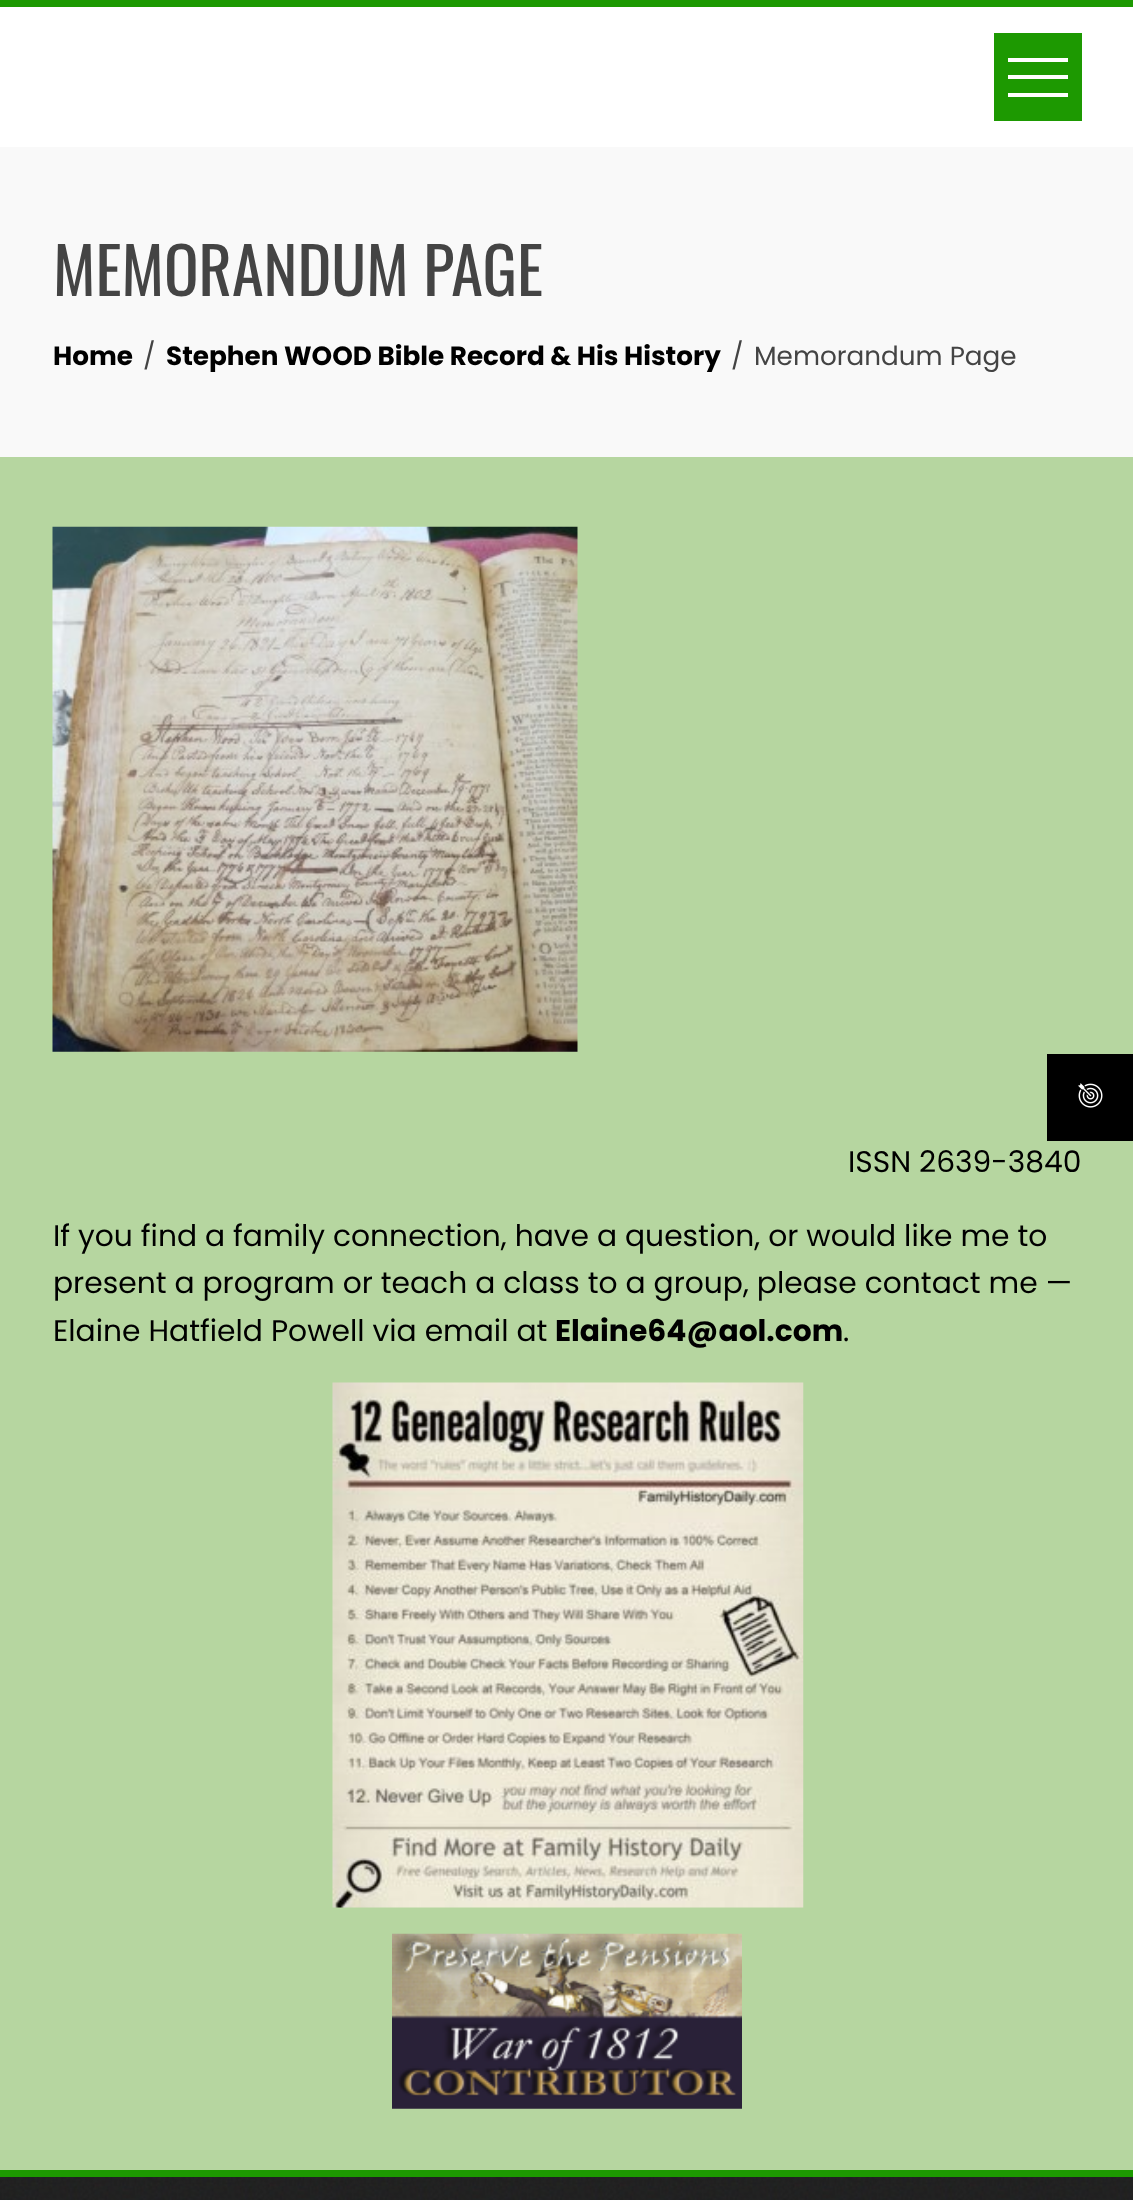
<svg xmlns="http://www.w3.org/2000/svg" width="1133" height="2200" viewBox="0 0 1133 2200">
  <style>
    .t1 { font: 64.25px Oswald; fill: #444; }
    .t2 { font: bold 26.25px Poppins; fill: #000; }
    .t3 { font: 26.25px Poppins; fill: #444; }
    .t4 { font: 29.75px Poppins; fill: #000; }
    .t5 { font: bold 29.75px Poppins; fill: #000; }
  </style>
  <rect width="100%" height="100%" fill="#b6d6a0"/>
  <rect x="0" y="7" width="1133" height="140" fill="#fff"/>
  <rect x="0" y="0" width="1133" height="7" fill="#1d9901"/>
  <rect x="994" y="33" width="88" height="88" fill="#1d9901"/>
  <rect x="1008" y="58" width="60" height="4" fill="#fff"/>
  <rect x="1008" y="93" width="60" height="4" fill="#fff"/>
  <rect x="1008" y="75" width="60" height="4" fill="#fff"/>
  <rect x="0" y="147" width="1133" height="310" fill="#f9f9f9"/>
  <text x="53" y="296" class="t1">MEMORANDUM PAGE</text>
  <text x="53" y="365" class="t2">Home</text>
  <text x="143" y="365" class="t3">/</text>
  <text x="166" y="365" class="t2">Stephen WOOD Bible Record &amp; His History</text>
  <text x="731" y="365" class="t3">/</text>
  <text x="754" y="365" class="t3">Memorandum Page</text>
  <image x="52" y="526" width="526" height="526" href="images/1.png"/>
  <text x="848" y="1172" class="t4">ISSN 2639-3840</text>
  <text x="53" y="1246" class="t4">If you find a family connection, have a question, or would like me to</text>
  <text x="53" y="1293" class="t4">present a program or teach a class to a group, please contact me —</text>
  <text x="53" y="1341" class="t4">Elaine Hatfield Powell via email at</text>
  <text x="555" y="1341" class="t5">Elaine64@aol.com</text>
  <text x="843" y="1341" class="t4">.</text>
  <image x="332" y="1382" width="472" height="526" href="images/2.png"/>
  <image x="392" y="1933" width="350" height="176" href="images/3.png"/>
  <image x="0" y="2177" width="1133" height="23" href="images/4.png"/>
  <rect x="0" y="2170" width="1133" height="7" fill="#1d9901"/>
  <rect x="0" y="2177" width="1133" height="23" fill="#0000004d"/>
  <rect x="1047" y="1054" width="86" height="87" fill="#000"/>
  <image x="1078" y="1083" width="25" height="25" href="images/5.png"/>
</svg>
